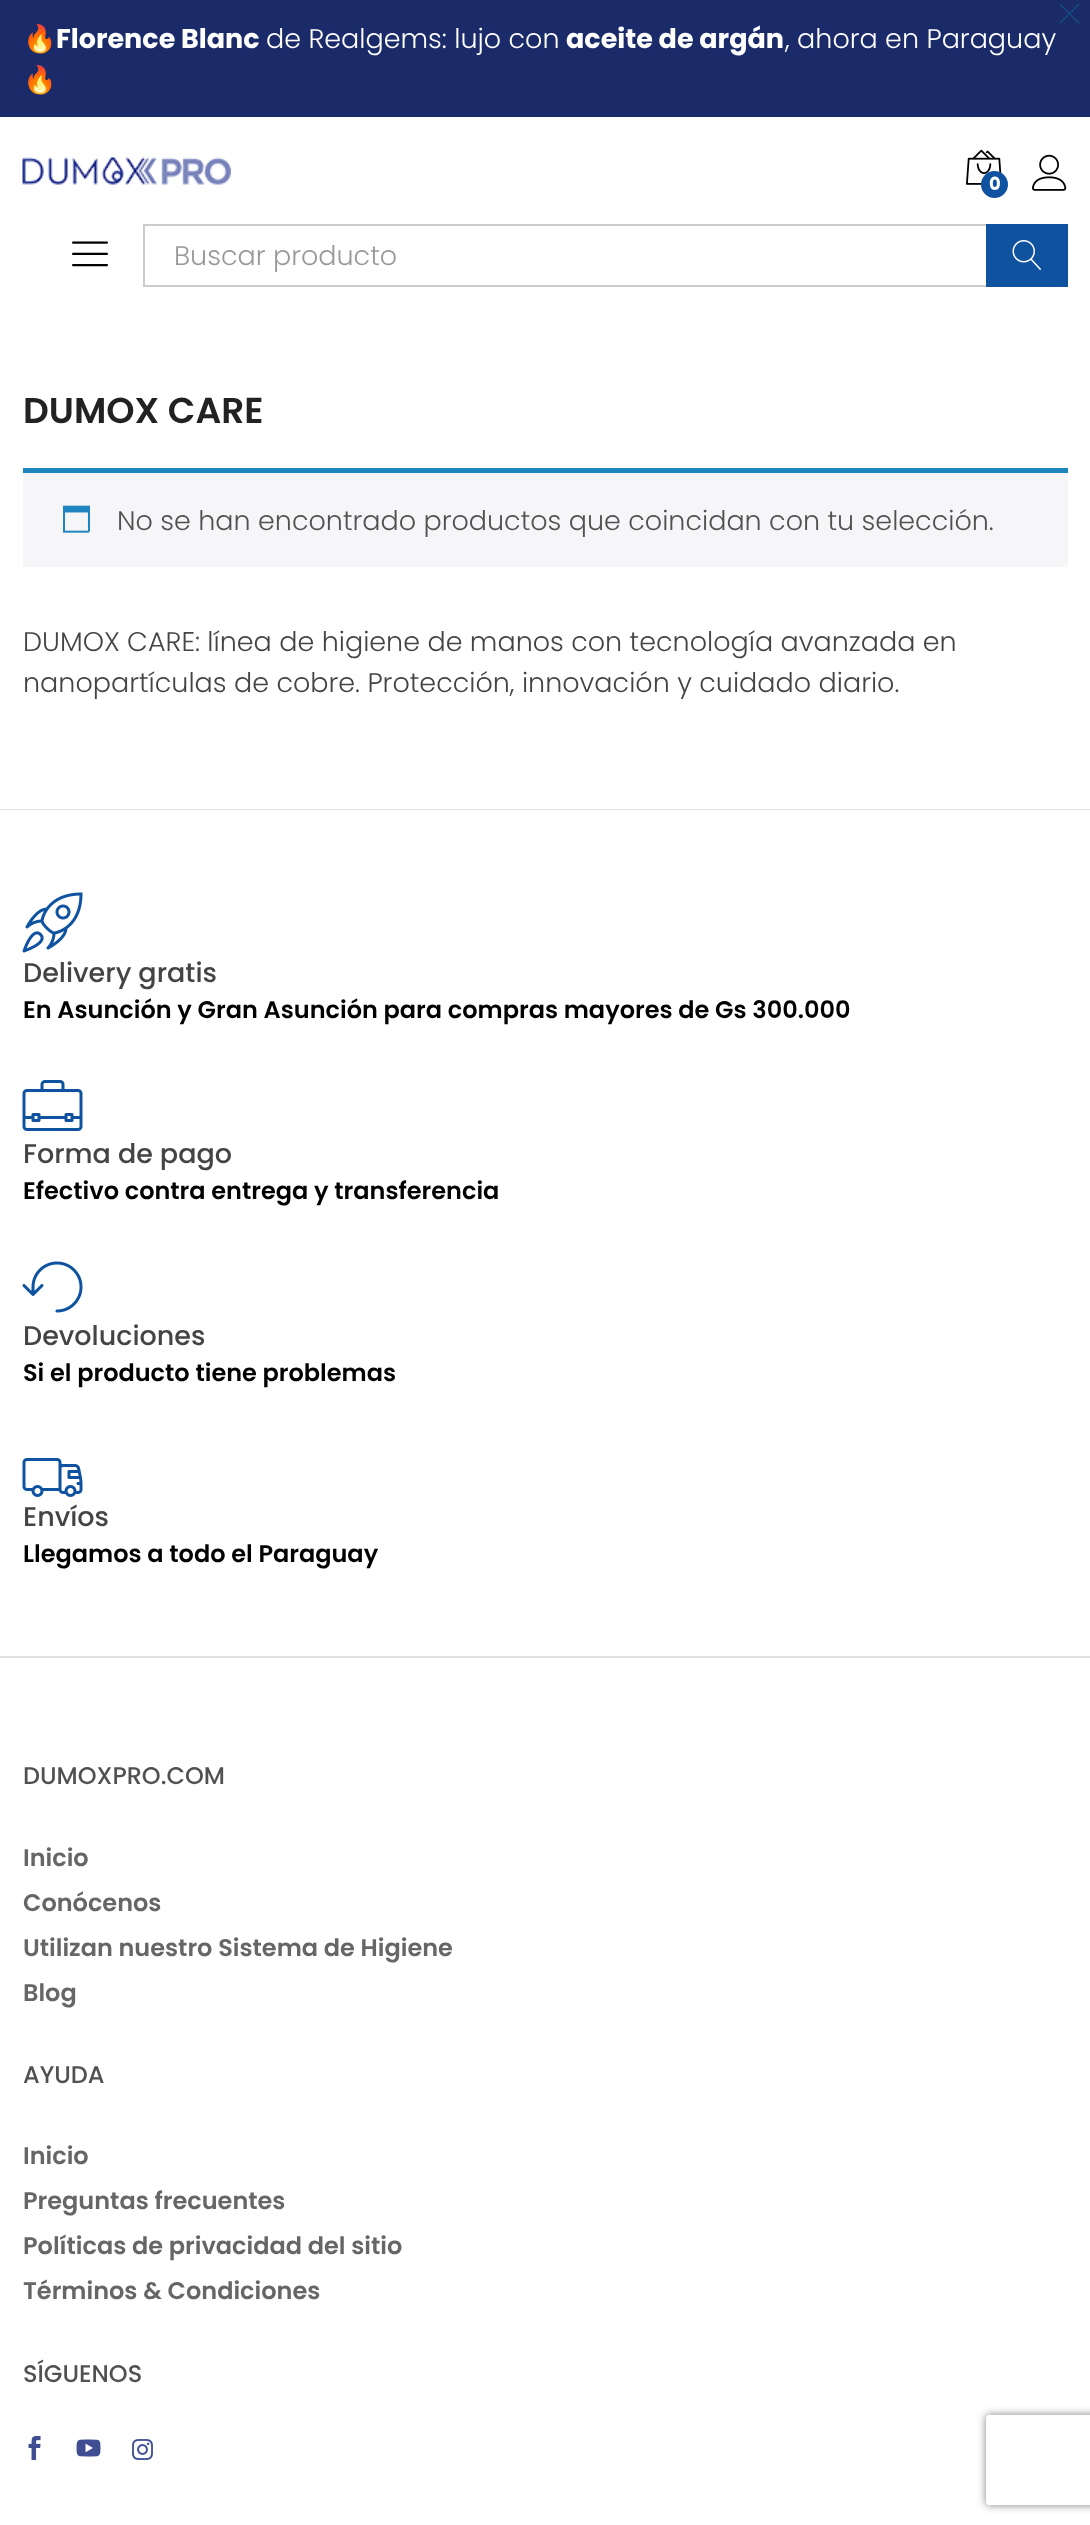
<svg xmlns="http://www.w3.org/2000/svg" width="1090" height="2525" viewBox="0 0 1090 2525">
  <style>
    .t1 { font: 27px Noto Color Emoji; fill: #fff; }
    .t2 { font: bold 27px Poppins; fill: #fff; }
    .t3 { font: 300 27px Poppins; fill: #fff; }
    .t4 { font: bold 18px Poppins; fill: #fff; }
    .t5 { font: 300 27px Poppins; fill: #999; }
    .t6 { font: 600 36px Poppins; fill: #222; }
    .t7 { font: 300 27px Poppins; fill: #515151; }
    .t8 { font: 300 27px Poppins; fill: #444; }
    .t9 { font: 500 27px Poppins; fill: #444; }
    .t10 { font: 600 24px Poppins; fill: #000; }
    .t11 { font: 500 24px Poppins; fill: #515151; }
    .t12 { font: 600 24px Poppins; fill: #666; }
  </style>
  <defs>
    <clipPath id="clip1"><path d="M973 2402H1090V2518H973ZM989 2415H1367C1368.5 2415 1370 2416.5 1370 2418V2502C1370 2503.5 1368.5 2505 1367 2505H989C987.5 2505 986 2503.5 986 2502V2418C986 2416.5 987.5 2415 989 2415Z" clip-rule="evenodd"/></clipPath>
  </defs>
  <rect width="100%" height="100%" fill="#fff"/>
  <rect x="0" y="0" width="1090" height="117" fill="#1b2b69"/>
  <image x="1059" y="3" width="21" height="21" href="images/1.png"/>
  <text x="23" y="48" class="t1">🔥</text>
  <text x="56" y="48" class="t2">Florence Blanc</text>
  <text x="266" y="48" class="t3">de Realgems: lujo con</text>
  <text x="566" y="48" class="t2">aceite de argán</text>
  <text x="785" y="48" class="t3">, ahora en Paraguay</text>
  <text x="23" y="89" class="t1">🔥</text>
  <image x="22" y="157" width="209" height="28" href="images/2.png"/>
  <image x="966" y="149" width="36" height="36" href="images/3.png"/>
  <circle cx="994.5" cy="184.5" r="13.5" fill="#0f53a0"/>
  <text x="989" y="190" class="t4">0</text>
  <image x="1032" y="154" width="35" height="37" href="images/4.png"/>
  <image x="72" y="241" width="36" height="26" href="images/5.png"/>
  <rect x="143" y="224" width="843" height="2" fill="#ccc"/>
  <rect x="143" y="285" width="843" height="2" fill="#ccc"/>
  <rect x="143" y="224" width="2" height="63" fill="#ccc"/>
  <text x="174" y="265" class="t5">Buscar producto</text>
  <rect x="986" y="224" width="82" height="63" fill="#0f53a0"/>
  <image x="1012" y="240" width="29" height="30" href="images/6.png"/>
  <text x="23" y="423" class="t6">DUMOX CARE</text>
  <rect x="23" y="473" width="1045" height="94" fill="#f6f5f8"/>
  <rect x="23" y="468" width="1045" height="5" fill="#1e85be"/>
  <image x="63" y="505" width="27" height="28" href="images/7.png"/>
  <text x="117" y="530" class="t7">No se han encontrado productos que coincidan con tu selección.</text>
  <text x="23" y="651" class="t8">DUMOX CARE: línea de higiene de manos con tecnología avanzada en</text>
  <text x="23" y="692" class="t8">nanopartículas de cobre. Protección, innovación y cuidado diario.</text>
  <rect x="0" y="809" width="1090" height="1" fill="#e1e1e1"/>
  <rect x="0" y="1656" width="1090" height="2" fill="#e1e1e1"/>
  <image x="22" y="892" width="61" height="61" href="images/8.png"/>
  <text x="23" y="982" class="t9">Delivery gratis</text>
  <text x="23" y="1018" class="t10">En Asunción y Gran Asunción para compras mayores de Gs 300.000</text>
  <image x="22" y="1080" width="61" height="51" href="images/9.png"/>
  <text x="23" y="1163" class="t9">Forma de pago</text>
  <text x="23" y="1199" class="t10">Efectivo contra entrega y transferencia</text>
  <image x="22" y="1261" width="61" height="52" href="images/10.png"/>
  <text x="23" y="1345" class="t9">Devoluciones</text>
  <text x="23" y="1381" class="t10">Si el producto tiene problemas</text>
  <image x="22" y="1458" width="61" height="39" href="images/11.png"/>
  <text x="23" y="1526" class="t9">Envíos</text>
  <text x="23" y="1562" class="t10">Llegamos a todo el Paraguay</text>
  <text x="23" y="1784" class="t11">DUMOXPRO.COM</text>
  <text x="23" y="1866" class="t12">Inicio</text>
  <text x="23" y="1911" class="t12">Conócenos</text>
  <text x="23" y="1956" class="t12">Utilizan nuestro Sistema de Higiene</text>
  <text x="23" y="2001" class="t12">Blog</text>
  <text x="23" y="2083" class="t11">AYUDA</text>
  <text x="23" y="2164" class="t12">Inicio</text>
  <text x="23" y="2209" class="t12">Preguntas frecuentes</text>
  <text x="23" y="2254" class="t12">Políticas de privacidad del sitio</text>
  <text x="23" y="2299" class="t12">Términos &amp; Condiciones</text>
  <text x="23" y="2382" class="t11">SÍGUENOS</text>
  <image x="28" y="2436" width="13" height="24" href="images/12.png"/>
  <image x="76" y="2439" width="25" height="18" href="images/13.png"/>
  <image x="132" y="2439" width="21" height="21" href="images/14.png"/>
  <g clip-path="url(#clip1)">
    <rect x="986" y="2415" width="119" height="90" rx="3" fill="#808080" filter="blur(4px)"/>
  </g>
</svg>
